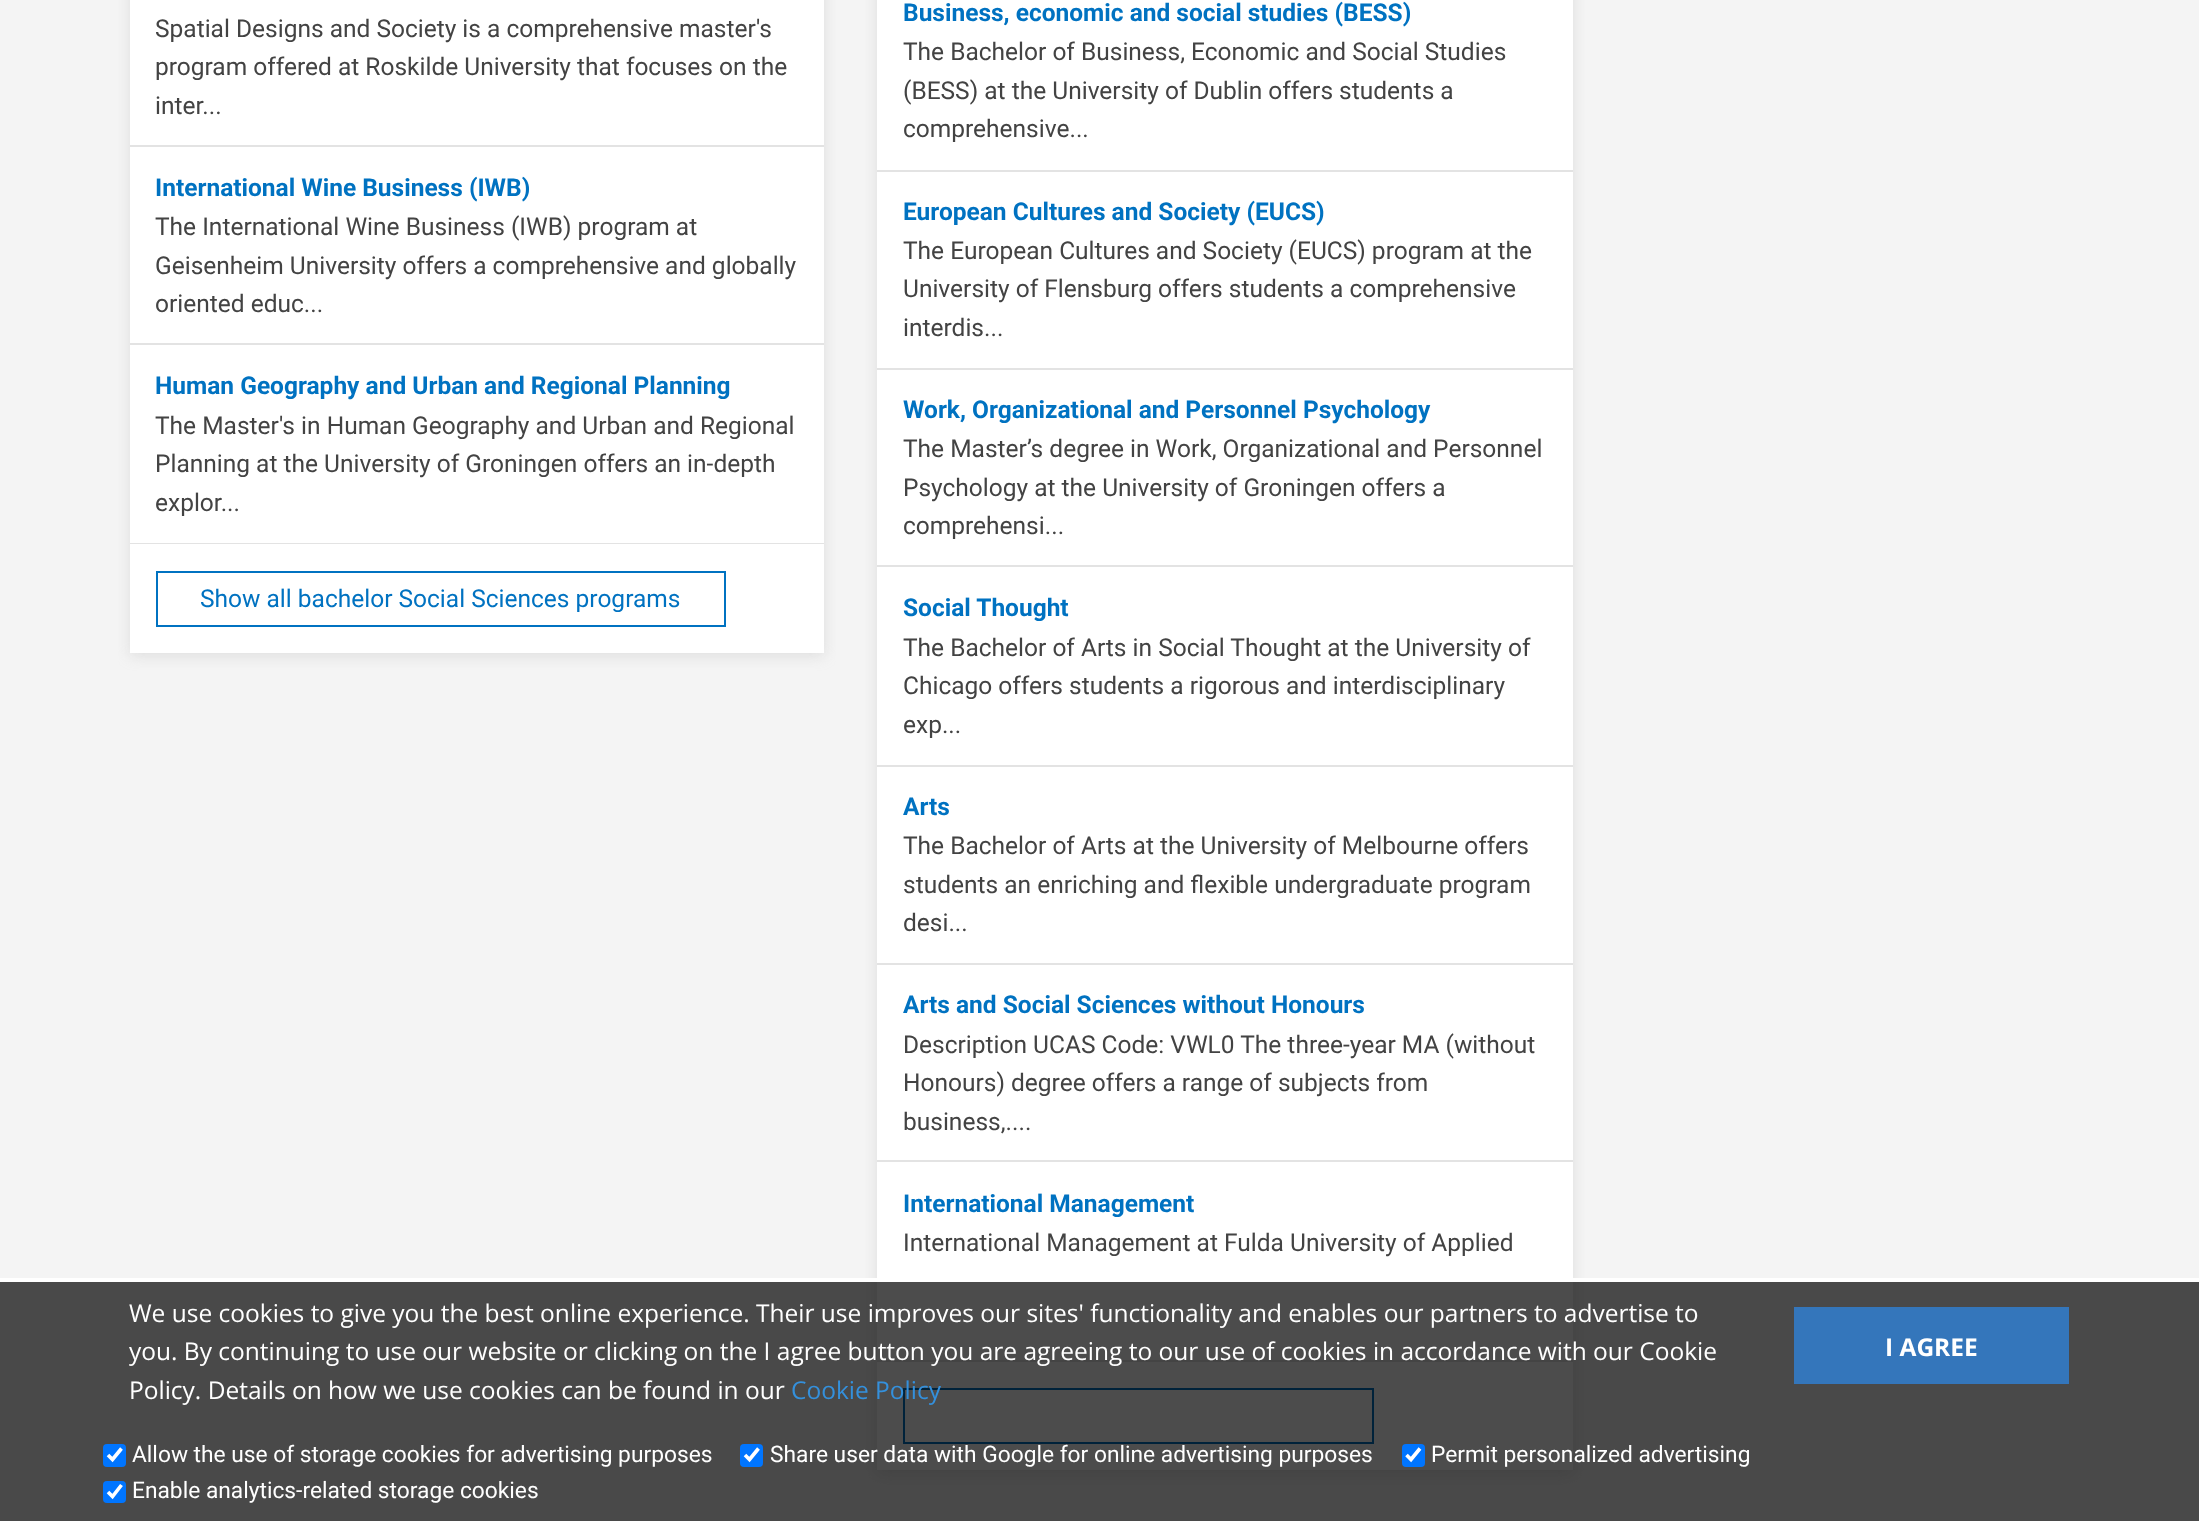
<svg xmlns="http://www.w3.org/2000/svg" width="2199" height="1521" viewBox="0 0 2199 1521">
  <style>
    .t1 { font: 24.5px Roboto; fill: #434343; }
    .t2 { font: bold 24.5px Roboto; fill: #0072c1; }
    .t3 { font: 24.5px Roboto; fill: #0072c1; }
    .t4 { font: 24.5px Open Sans; fill: #fff; }
    .t5 { font: 24.5px Open Sans; fill: #3490dc; }
    .t6 { font: bold 24.5px Open Sans; fill: #fff; }
    .t7 { font: 22.75px Roboto; fill: #fff; }
  </style>
  <rect width="100%" height="100%" fill="#f4f4f4"/>
  <rect x="130" y="-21" width="694" height="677" fill="#b6b6b659" filter="blur(7px)"/>
  <rect x="130" y="0" width="694" height="543" fill="#fff"/>
  <rect x="130" y="145" width="694" height="2" fill="#e3e3e3"/>
  <text x="155" y="37" class="t1">Spatial Designs and Society is a comprehensive master's</text>
  <text x="155" y="75" class="t1">program offered at Roskilde University that focuses on the</text>
  <text x="155" y="114" class="t1">inter...</text>
  <rect x="130" y="343" width="694" height="2" fill="#e3e3e3"/>
  <text x="155" y="196" class="t2">International Wine Business (IWB)</text>
  <text x="155" y="235" class="t1">The International Wine Business (IWB) program at</text>
  <text x="155" y="274" class="t1">Geisenheim University offers a comprehensive and globally</text>
  <text x="155" y="312" class="t1">oriented educ...</text>
  <rect x="130" y="543" width="694" height="1" fill="#e3e3e3"/>
  <text x="155" y="394" class="t2">Human Geography and Urban and Regional Planning</text>
  <text x="155" y="434" class="t1">The Master's in Human Geography and Urban and Regional</text>
  <text x="155" y="472" class="t1">Planning at the University of Groningen offers an in-depth</text>
  <text x="155" y="511" class="t1">explor...</text>
  <rect x="130" y="544" width="694" height="109" fill="#fff"/>
  <rect x="157" y="572" width="568" height="54" fill="none" stroke="#0072c1" stroke-width="2"/>
  <text x="200" y="607" class="t3">Show all bachelor Social Sciences programs</text>
  <rect x="877" y="-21" width="696" height="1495" fill="#b6b6b659" filter="blur(7px)"/>
  <rect x="877" y="0" width="696" height="1470" fill="#fff"/>
  <rect x="877" y="170" width="696" height="2" fill="#e3e3e3"/>
  <text x="903" y="21" class="t2">Business, economic and social studies (BESS)</text>
  <text x="903" y="60" class="t1">The Bachelor of Business, Economic and Social Studies</text>
  <text x="903" y="99" class="t1">(BESS) at the University of Dublin offers students a</text>
  <text x="903" y="137" class="t1">comprehensive...</text>
  <rect x="877" y="368" width="696" height="2" fill="#e3e3e3"/>
  <text x="903" y="220" class="t2">European Cultures and Society (EUCS)</text>
  <text x="903" y="259" class="t1">The European Cultures and Society (EUCS) program at the</text>
  <text x="903" y="297" class="t1">University of Flensburg offers students a comprehensive</text>
  <text x="903" y="336" class="t1">interdis...</text>
  <rect x="877" y="565" width="696" height="2" fill="#e3e3e3"/>
  <text x="903" y="418" class="t2">Work, Organizational and Personnel Psychology</text>
  <text x="903" y="457" class="t1">The Master’s degree in Work, Organizational and Personnel</text>
  <text x="903" y="496" class="t1">Psychology at the University of Groningen offers a</text>
  <text x="903" y="534" class="t1">comprehensi...</text>
  <rect x="877" y="765" width="696" height="2" fill="#e3e3e3"/>
  <text x="903" y="616" class="t2">Social Thought</text>
  <text x="903" y="656" class="t1">The Bachelor of Arts in Social Thought at the University of</text>
  <text x="903" y="694" class="t1">Chicago offers students a rigorous and interdisciplinary</text>
  <text x="903" y="733" class="t1">exp...</text>
  <rect x="877" y="963" width="696" height="2" fill="#e3e3e3"/>
  <text x="903" y="815" class="t2">Arts</text>
  <text x="903" y="854" class="t1">The Bachelor of Arts at the University of Melbourne offers</text>
  <text x="903" y="893" class="t1">students an enriching and flexible undergraduate program</text>
  <text x="903" y="931" class="t1">desi...</text>
  <rect x="877" y="1160" width="696" height="2" fill="#e3e3e3"/>
  <text x="903" y="1013" class="t2">Arts and Social Sciences without Honours</text>
  <text x="903" y="1053" class="t1">Description UCAS Code: VWL0 The three-year MA (without</text>
  <text x="903" y="1091" class="t1">Honours) degree offers a range of subjects from</text>
  <text x="903" y="1130" class="t1">business,....</text>
  <rect x="877" y="1360" width="696" height="2" fill="#e3e3e3"/>
  <text x="903" y="1212" class="t2">International Management</text>
  <text x="903" y="1251" class="t1">International Management at Fulda University of Applied</text>
  <rect x="904" y="1389" width="469" height="54" fill="none" stroke="#0072c1" stroke-width="2"/>
  <rect x="0" y="1282" width="2199" height="239" fill="#000000b3"/>
  <rect x="0" y="1278" width="2199" height="4" fill="#fff"/>
  <text x="129" y="1322" class="t4">We use cookies to give you the best online experience. Their use improves our sites' functionality and enables our partners to advertise to</text>
  <text x="129" y="1360" class="t4">you. By continuing to use our website or clicking on the I agree button you are agreeing to our use of cookies in accordance with our Cookie</text>
  <text x="129" y="1399" class="t4">Policy. Details on how we use cookies can be found in our</text>
  <text x="791" y="1399" class="t5">Cookie Policy</text>
  <rect x="1794" y="1307" width="275" height="77" fill="#3476bb"/>
  <text x="1885" y="1356" class="t6">I AGREE</text>
  <rect x="103" y="1444" width="23" height="23" rx="4" fill="#0075ff"/>
  <path d="M108 1455L112.5 1459.5L121.5 1448.5" fill="none" stroke="#fff" stroke-width="3.6"/>
  <text x="132" y="1462" class="t7">Allow the use of storage cookies for advertising purposes</text>
  <rect x="740" y="1444" width="23" height="23" rx="4" fill="#0075ff"/>
  <path d="M745 1455L749.5 1459.5L758.5 1448.5" fill="none" stroke="#fff" stroke-width="3.6"/>
  <text x="770" y="1462" class="t7">Share user data with Google for online advertising purposes</text>
  <rect x="1402" y="1444" width="23" height="23" rx="4" fill="#0075ff"/>
  <path d="M1406.5 1455L1411 1459.5L1420 1448.5" fill="none" stroke="#fff" stroke-width="3.6"/>
  <text x="1431" y="1462" class="t7">Permit personalized advertising</text>
  <rect x="103" y="1481" width="23" height="22" rx="4" fill="#0075ff"/>
  <path d="M108 1492L112.5 1496.5L121.5 1485" fill="none" stroke="#fff" stroke-width="3.6"/>
  <text x="132" y="1498" class="t7">Enable analytics-related storage cookies</text>
</svg>
